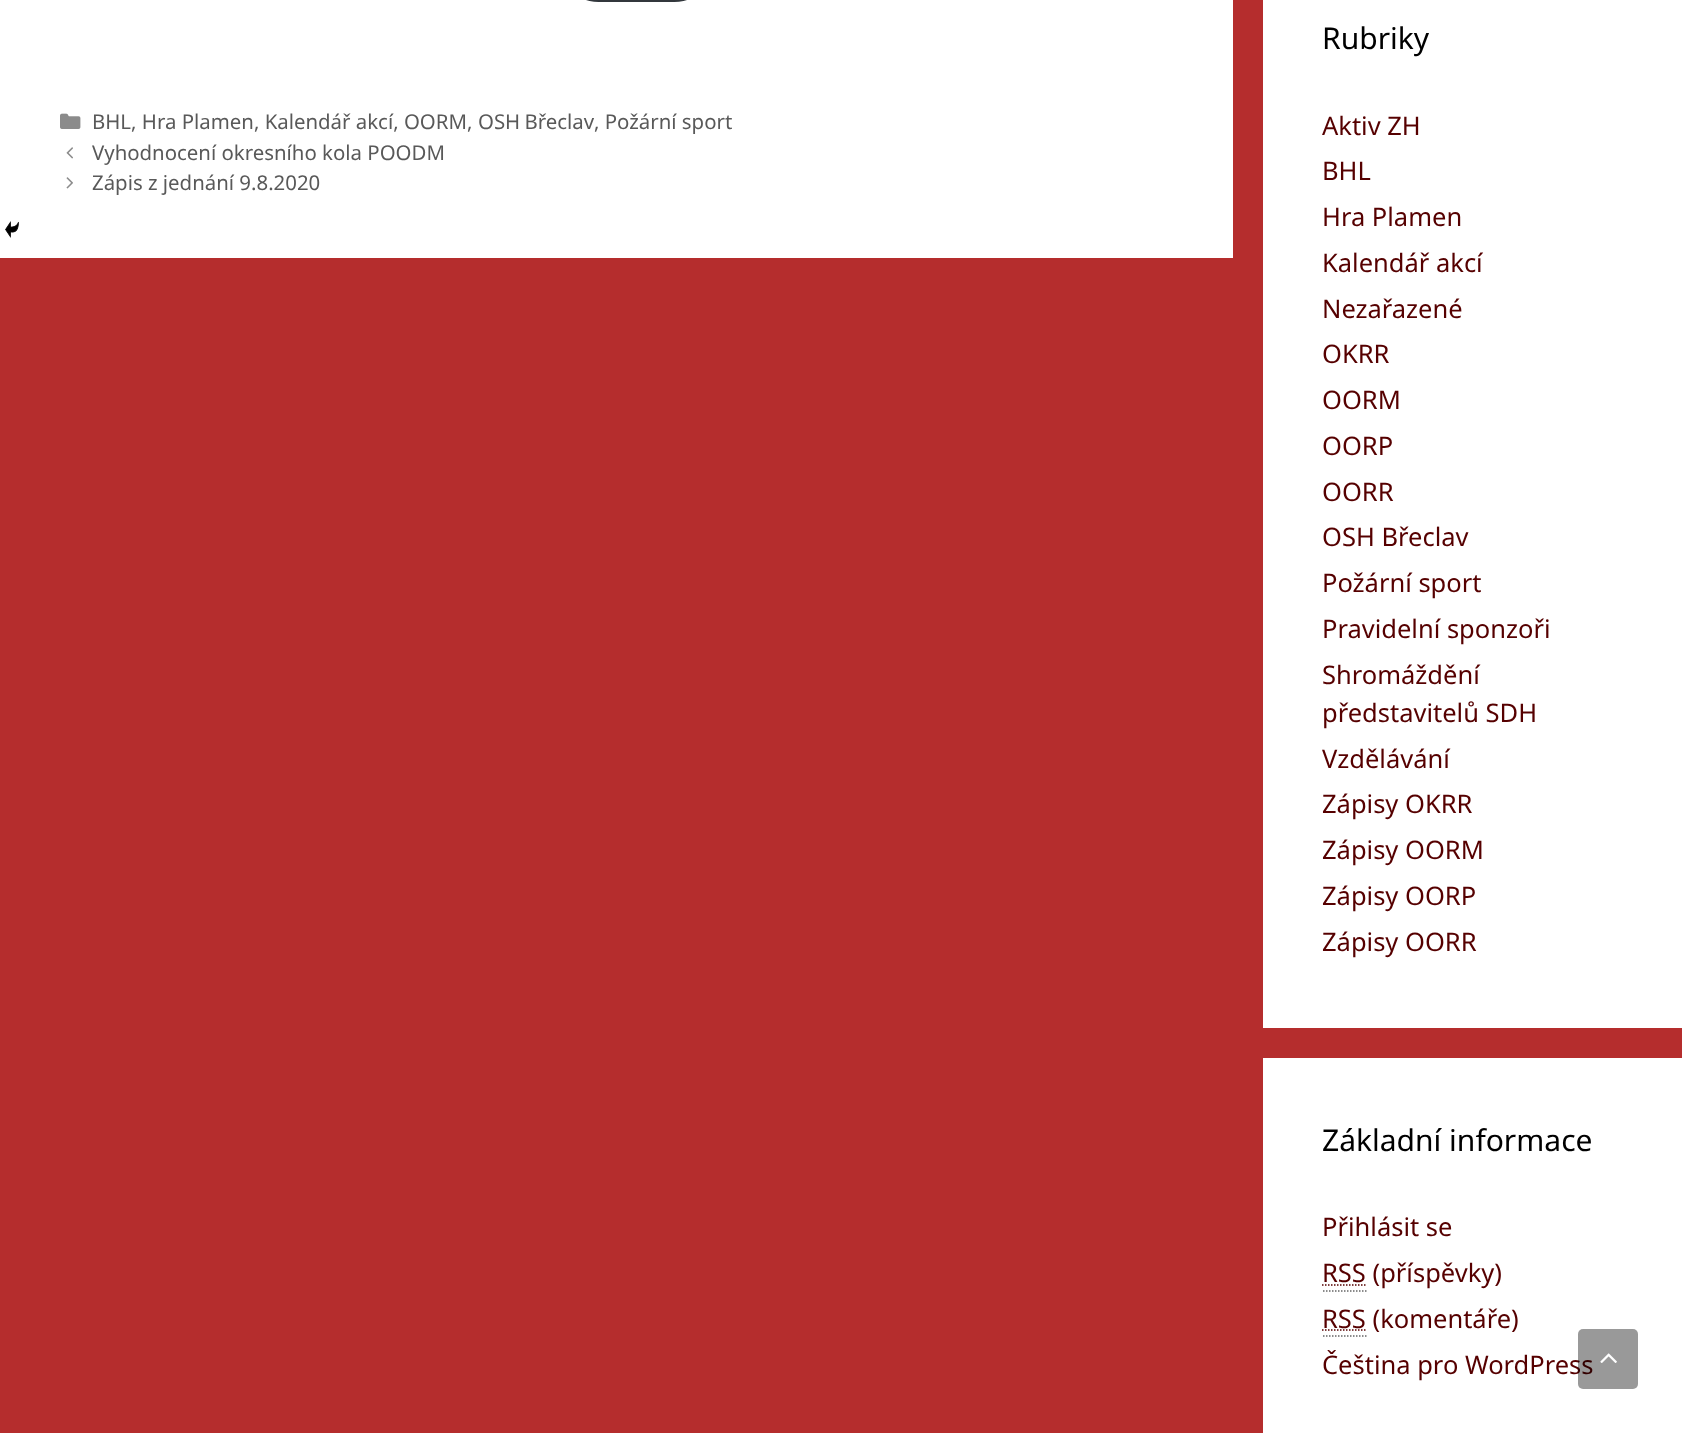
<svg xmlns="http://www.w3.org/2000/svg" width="1682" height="1433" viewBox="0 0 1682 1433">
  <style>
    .t1 { font: 20.4px Noto Sans; fill: #595959; }
    .t2 { font: 30px Noto Sans; fill: #000; }
    .t3 { font: 25.5px Noto Sans; fill: #560000; }
  </style>
  <rect width="100%" height="100%" fill="#b52d2d"/>
  <rect x="0" y="0" width="1233" height="258" fill="#fff"/>
  <rect x="575" y="-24" width="123" height="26" rx="23.5" fill="#32373c"/>
  <image x="5" y="221" width="14" height="17" href="images/1.png"/>
  <image x="60" y="113" width="21" height="16" href="images/2.png"/>
  <text x="92" y="129" class="t1">BHL, Hra Plamen, Kalendář akcí, OORM,</text>
  <text x="478" y="129" word-spacing="-1" class="t1">OSH Břeclav</text>
  <text x="594" y="129" class="t1">, Požární sport</text>
  <image x="66" y="147" width="7" height="12" href="images/3.png"/>
  <text x="92" y="160" class="t1">Vyhodnocení okresního kola POODM</text>
  <image x="66" y="177" width="7" height="12" href="images/4.png"/>
  <text x="92" y="190" class="t1">Zápis z jednání 9.8.2020</text>
  <rect x="1263" y="0" width="419" height="1028" fill="#fff"/>
  <text x="1322" y="49" class="t2">Rubriky</text>
  <text x="1322" y="135" class="t3">Aktiv ZH</text>
  <text x="1322" y="180" class="t3">BHL</text>
  <text x="1322" y="226" class="t3">Hra Plamen</text>
  <text x="1322" y="272" class="t3">Kalendář akcí</text>
  <text x="1322" y="318" class="t3">Nezařazené</text>
  <text x="1322" y="363" class="t3">OKRR</text>
  <text x="1322" y="409" class="t3">OORM</text>
  <text x="1322" y="455" class="t3">OORP</text>
  <text x="1322" y="501" class="t3">OORR</text>
  <text x="1322" y="546" class="t3">OSH Břeclav</text>
  <text x="1322" y="592" class="t3">Požární sport</text>
  <text x="1322" y="638" class="t3">Pravidelní sponzoři</text>
  <text x="1322" y="684" class="t3">Shromáždění</text>
  <text x="1322" y="722" class="t3">představitelů SDH</text>
  <text x="1322" y="768" class="t3">Vzdělávání</text>
  <text x="1322" y="813" class="t3">Zápisy OKRR</text>
  <text x="1322" y="859" class="t3">Zápisy OORM</text>
  <text x="1322" y="905" class="t3">Zápisy OORP</text>
  <text x="1322" y="951" class="t3">Zápisy OORR</text>
  <rect x="1263" y="1058" width="419" height="375" fill="#fff"/>
  <text x="1322" y="1151" class="t2">Základní informace</text>
  <text x="1322" y="1236" class="t3">Přihlásit se</text>
  <path d="M1322 1285H1366" fill="none" stroke="#560000" stroke-width="1.5" stroke-dasharray="1.5 1.5"/>
  <text x="1322" y="1282" class="t3">RSS (příspěvky)</text>
  <path d="M1323 1291H1366.5" fill="none" stroke="#666" stroke-width="1.5" stroke-dasharray="1.5 1.5"/>
  <path d="M1322 1330H1366" fill="none" stroke="#560000" stroke-width="1.5" stroke-dasharray="1.5 1.5"/>
  <text x="1322" y="1328" class="t3">RSS (komentáře)</text>
  <path d="M1323 1336H1366.5" fill="none" stroke="#666" stroke-width="1.5" stroke-dasharray="1.5 1.5"/>
  <text x="1322" y="1374" class="t3">Čeština pro WordPress</text>
  <rect x="1578" y="1329" width="60" height="60" rx="5" fill="#00000066"/>
  <image x="1600" y="1353" width="17" height="10" href="images/5.png"/>
</svg>
